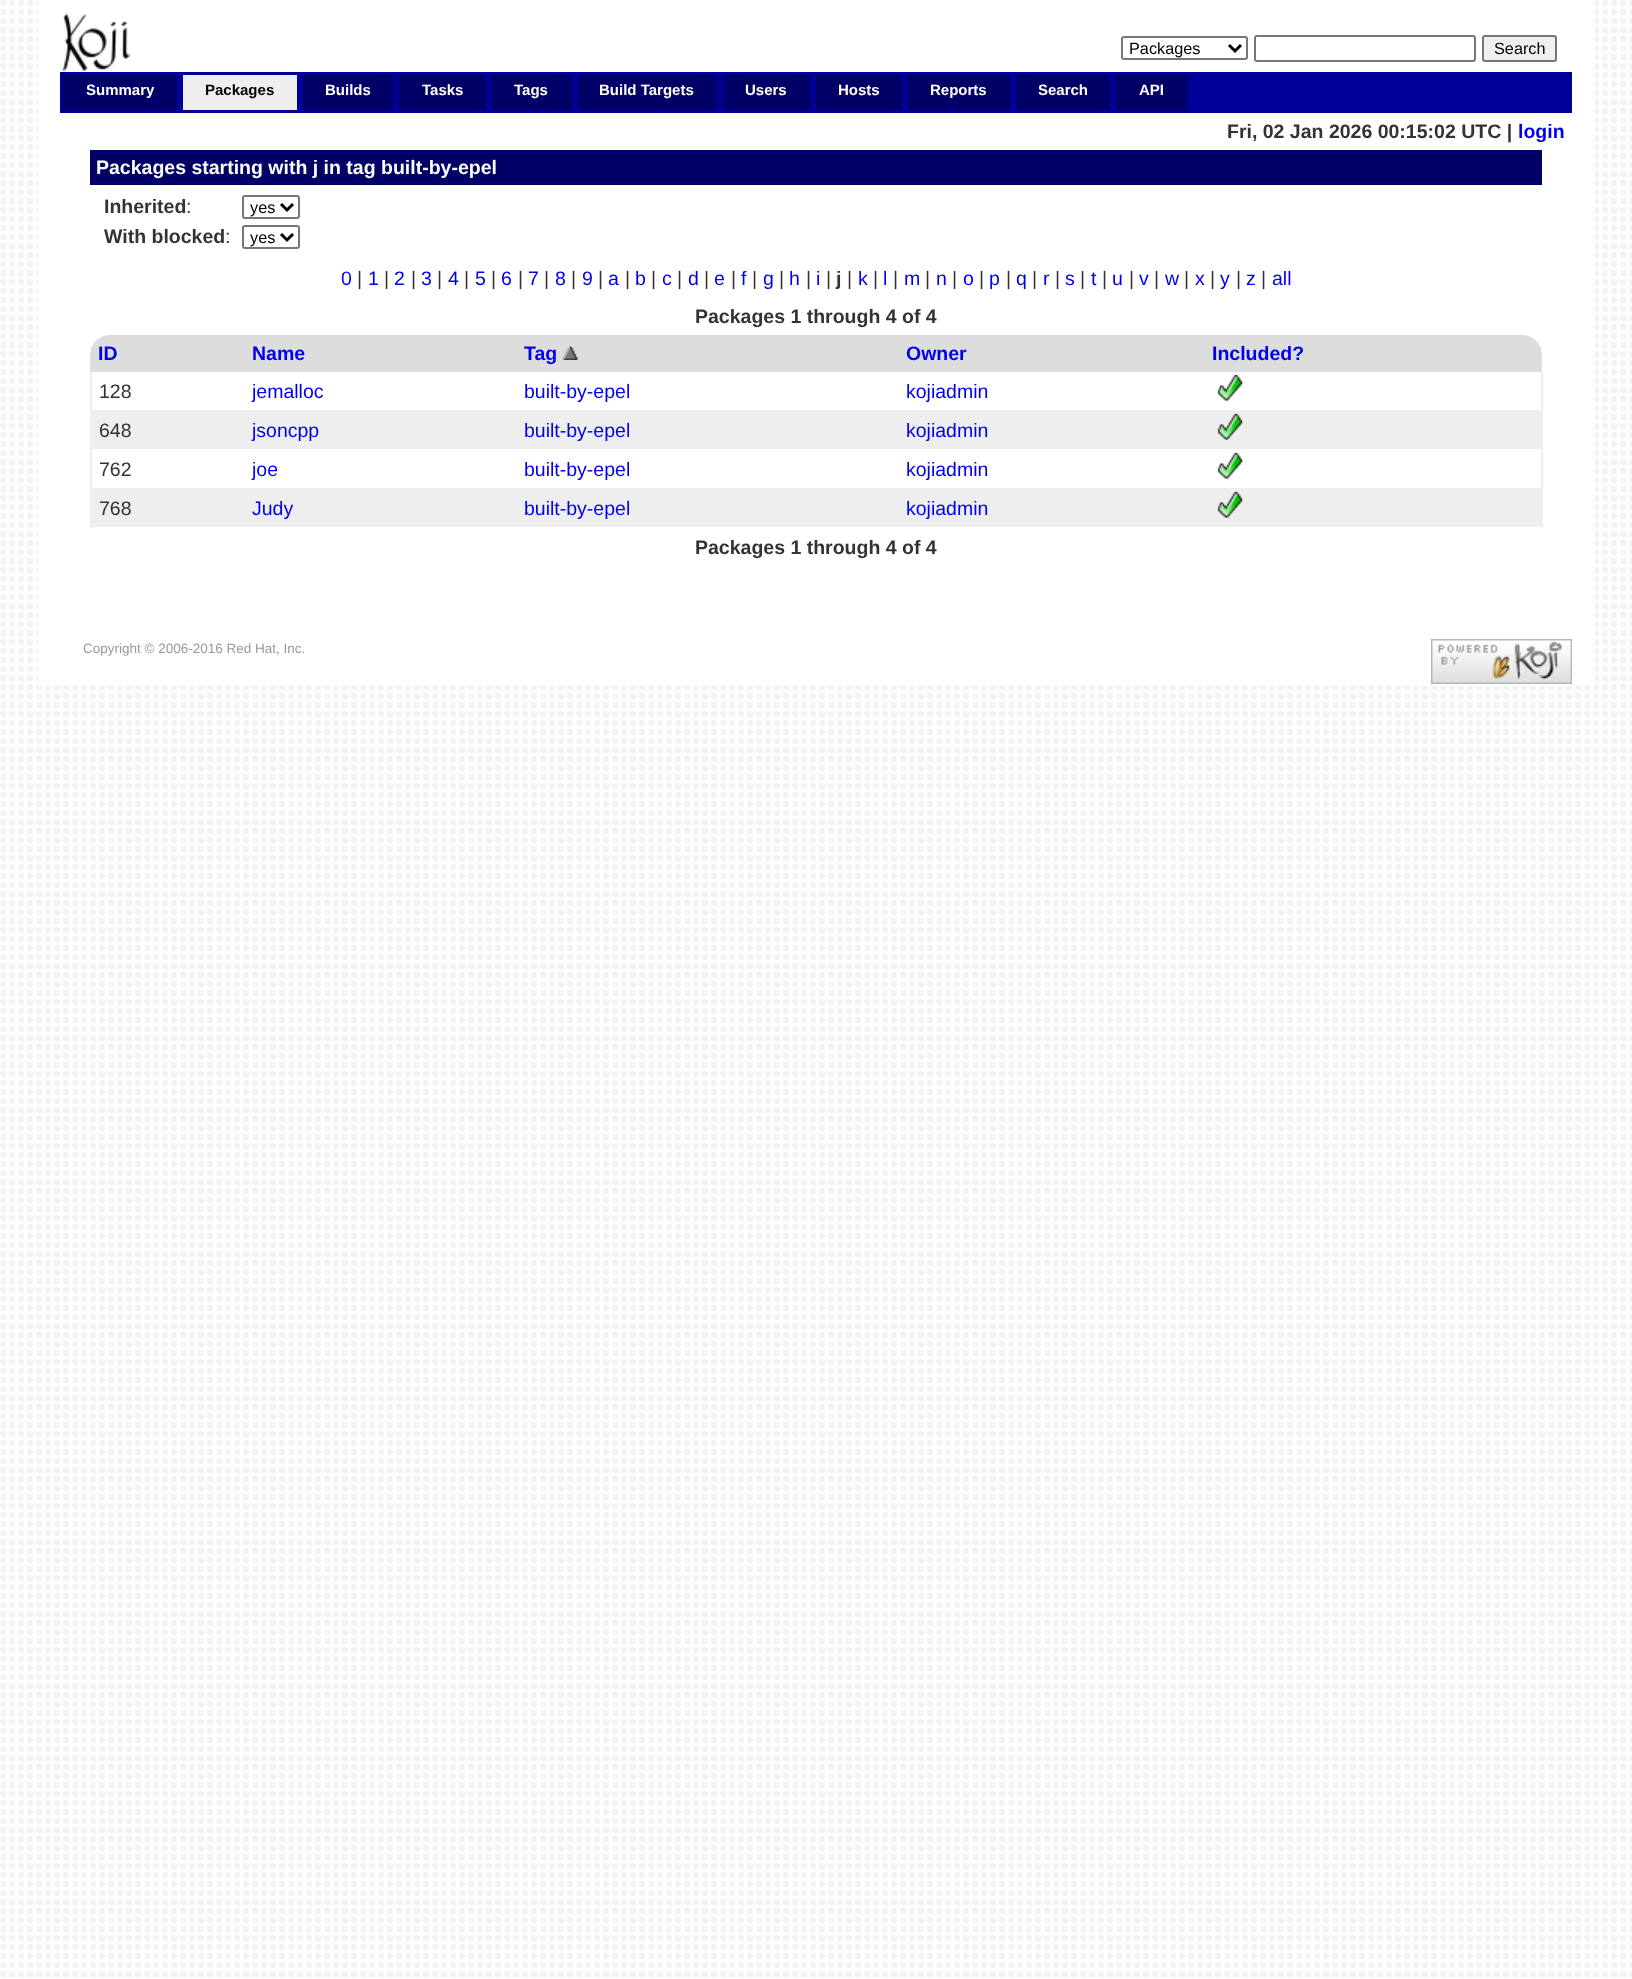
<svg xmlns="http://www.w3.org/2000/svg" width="1632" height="1979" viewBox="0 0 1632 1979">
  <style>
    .t1 { font: 16.25px Liberation Sans; fill: #000; }
    .t2 { font: bold 15px Liberation Sans; fill: #fff; }
    .t3 { font: bold 15px Liberation Sans; fill: #000; }
    .t4 { font: bold 19.5px Liberation Sans; fill: #333; }
    .t5 { font: bold 19.5px Liberation Sans; fill: #00e; }
    .t6 { font: bold 19.5px Liberation Sans; fill: #fff; }
    .t7 { font: 19.5px Liberation Sans; fill: #333; }
    .t8 { font: 19.5px Liberation Sans; fill: #00e; }
    .t9 { font: 13.5px Liberation Sans; fill: #999; }
  </style>
  <rect width="100%" height="100%" fill="#fff"/>
  <image x="0" y="0" width="1632" height="1977" href="images/1.png"/>
  <rect x="38" y="0" width="1557" height="686" fill="#fff"/>
  <image x="62" y="13" width="69" height="59" href="images/2.png"/>
  <rect x="1122" y="37" width="125" height="22" rx="2" fill="none" stroke="#767676" stroke-width="2"/>
  <path d="M1229 45L1235 51L1241 45" fill="none" stroke="#000" stroke-width="3"/>
  <text x="1129" y="54" class="t1">Packages</text>
  <rect x="1255" y="36" width="220" height="25" rx="2" fill="none" stroke="#767676" stroke-width="2"/>
  <rect x="1483" y="36" width="73" height="25" rx="2" fill="#efefef" stroke="#767676" stroke-width="2"/>
  <text x="1494" y="54" class="t1">Search</text>
  <rect x="1190" y="72" width="382" height="41" fill="#009"/>
  <rect x="61.5" y="73.5" width="117" height="38" fill="#006" stroke="#009" stroke-width="3"/>
  <text x="86" y="95" class="t2">Summary</text>
  <rect x="181.5" y="73.5" width="117" height="38" fill="none" stroke="#009" stroke-width="3"/>
  <rect x="183" y="75" width="114" height="35" fill="#eee"/>
  <text x="205" y="95" class="t3">Packages</text>
  <rect x="301.5" y="73.5" width="93" height="38" fill="#006" stroke="#009" stroke-width="3"/>
  <text x="325" y="95" class="t2">Builds</text>
  <rect x="397.5" y="73.5" width="90" height="38" fill="#006" stroke="#009" stroke-width="3"/>
  <text x="422" y="95" class="t2">Tasks</text>
  <rect x="490.5" y="73.5" width="83" height="38" fill="#006" stroke="#009" stroke-width="3"/>
  <text x="514" y="95" class="t2">Tags</text>
  <rect x="576.5" y="73.5" width="142" height="38" fill="#006" stroke="#009" stroke-width="3"/>
  <text x="599" y="95" class="t2">Build Targets</text>
  <rect x="721.5" y="73.5" width="90" height="38" fill="#006" stroke="#009" stroke-width="3"/>
  <text x="745" y="95" class="t2">Users</text>
  <rect x="814.5" y="73.5" width="89" height="38" fill="#006" stroke="#009" stroke-width="3"/>
  <text x="838" y="95" class="t2">Hosts</text>
  <rect x="906.5" y="73.5" width="105" height="38" fill="#006" stroke="#009" stroke-width="3"/>
  <text x="930" y="95" class="t2">Reports</text>
  <rect x="1014.5" y="73.5" width="97" height="38" fill="#006" stroke="#009" stroke-width="3"/>
  <text x="1038" y="95" class="t2">Search</text>
  <rect x="1114.5" y="73.5" width="74" height="38" fill="#006" stroke="#009" stroke-width="3"/>
  <text x="1139" y="95" class="t2">API</text>
  <text x="1227" y="138" class="t4">Fri, 02 Jan 2026 00:15:02 UTC |</text>
  <text x="1518" y="138" class="t5">login</text>
  <rect x="90" y="150" width="1452" height="35" fill="#006"/>
  <text x="96" y="174" class="t6">Packages starting with j in tag built-by-epel</text>
  <text x="104" y="213" class="t4">Inherited</text>
  <text x="186" y="213" class="t7">:</text>
  <rect x="243" y="196" width="56" height="22" rx="2" fill="none" stroke="#767676" stroke-width="2"/>
  <path d="M281 204L287 210L293 204" fill="none" stroke="#000" stroke-width="3"/>
  <text x="250" y="213" class="t1">yes</text>
  <text x="104" y="243" class="t4">With blocked</text>
  <text x="225" y="243" class="t7">:</text>
  <rect x="243" y="226" width="56" height="22" rx="2" fill="none" stroke="#767676" stroke-width="2"/>
  <path d="M281 234L287 240L293 234" fill="none" stroke="#000" stroke-width="3"/>
  <text x="250" y="243" class="t1">yes</text>
  <text x="341" y="285" class="t8">0</text>
  <text x="357" y="285" class="t7">|</text>
  <text x="368" y="285" class="t8">1</text>
  <text x="384" y="285" class="t7">|</text>
  <text x="394" y="285" class="t8">2</text>
  <text x="411" y="285" class="t7">|</text>
  <text x="421" y="285" class="t8">3</text>
  <text x="437" y="285" class="t7">|</text>
  <text x="448" y="285" class="t8">4</text>
  <text x="464" y="285" class="t7">|</text>
  <text x="475" y="285" class="t8">5</text>
  <text x="491" y="285" class="t7">|</text>
  <text x="501" y="285" class="t8">6</text>
  <text x="518" y="285" class="t7">|</text>
  <text x="528" y="285" class="t8">7</text>
  <text x="544" y="285" class="t7">|</text>
  <text x="555" y="285" class="t8">8</text>
  <text x="571" y="285" class="t7">|</text>
  <text x="582" y="285" class="t8">9</text>
  <text x="598" y="285" class="t7">|</text>
  <text x="608" y="285" class="t8">a</text>
  <text x="625" y="285" class="t7">|</text>
  <text x="635" y="285" class="t8">b</text>
  <text x="651" y="285" class="t7">|</text>
  <text x="662" y="285" class="t8">c</text>
  <text x="677" y="285" class="t7">|</text>
  <text x="688" y="285" class="t8">d</text>
  <text x="704" y="285" class="t7">|</text>
  <text x="714" y="285" class="t8">e</text>
  <text x="731" y="285" class="t7">|</text>
  <text x="741" y="285" class="t8">f</text>
  <text x="752" y="285" class="t7">|</text>
  <text x="763" y="285" class="t8">g</text>
  <text x="779" y="285" class="t7">|</text>
  <text x="789" y="285" class="t8">h</text>
  <text x="806" y="285" class="t7">|</text>
  <text x="816" y="285" class="t8">i</text>
  <text x="826" y="285" class="t7">|</text>
  <text x="836" y="285" class="t4">j</text>
  <text x="847" y="285" class="t7">|</text>
  <text x="858" y="285" class="t8">k</text>
  <text x="873" y="285" class="t7">|</text>
  <text x="883" y="285" class="t8">l</text>
  <text x="893" y="285" class="t7">|</text>
  <text x="904" y="285" class="t8">m</text>
  <text x="925" y="285" class="t7">|</text>
  <text x="936" y="285" class="t8">n</text>
  <text x="952" y="285" class="t7">|</text>
  <text x="963" y="285" class="t8">o</text>
  <text x="979" y="285" class="t7">|</text>
  <text x="989" y="285" class="t8">p</text>
  <text x="1006" y="285" class="t7">|</text>
  <text x="1016" y="285" class="t8">q</text>
  <text x="1032" y="285" class="t7">|</text>
  <text x="1043" y="285" class="t8">r</text>
  <text x="1055" y="285" class="t7">|</text>
  <text x="1065" y="285" class="t8">s</text>
  <text x="1080" y="285" class="t7">|</text>
  <text x="1091" y="285" class="t8">t</text>
  <text x="1102" y="285" class="t7">|</text>
  <text x="1112" y="285" class="t8">u</text>
  <text x="1129" y="285" class="t7">|</text>
  <text x="1139" y="285" class="t8">v</text>
  <text x="1154" y="285" class="t7">|</text>
  <text x="1165" y="285" class="t8">w</text>
  <text x="1184" y="285" class="t7">|</text>
  <text x="1195" y="285" class="t8">x</text>
  <text x="1210" y="285" class="t7">|</text>
  <text x="1220" y="285" class="t8">y</text>
  <text x="1236" y="285" class="t7">|</text>
  <text x="1246" y="285" class="t8">z</text>
  <text x="1261" y="285" class="t7">|</text>
  <text x="1272" y="285" class="t8">all</text>
  <text x="695" y="323" class="t4">Packages 1 through 4 of 4</text>
  <path d="M110 335H245V372H90V355C90 344 99 335 110 335Z" fill="#ddd"/>
  <text x="98" y="360" class="t5">ID</text>
  <rect x="245" y="335" width="960" height="37" fill="#ddd"/>
  <text x="252" y="360" class="t5">Name</text>
  <text x="524" y="360" class="t5">Tag</text>
  <image x="562" y="346" width="16" height="14" href="images/3.png"/>
  <text x="906" y="360" class="t5">Owner</text>
  <path d="M1205 335H1522C1533 335 1542 344 1542 355V372H1205Z" fill="#ddd"/>
  <text x="1212" y="360" class="t5">Included?</text>
  <rect x="90" y="410" width="1115" height="1" fill="#eee"/>
  <rect x="90" y="372" width="2" height="78" fill="#eee"/>
  <text x="99" y="398" class="t7">128</text>
  <text x="252" y="398" class="t8">jemalloc</text>
  <text x="524" y="398" class="t8">built-by-epel</text>
  <text x="906" y="398" class="t8">kojiadmin</text>
  <rect x="1541" y="372" width="2" height="156" fill="#eee"/>
  <rect x="1205" y="410" width="337" height="1" fill="#eee"/>
  <image x="1217" y="374" width="26" height="27" href="images/4.png"/>
  <rect x="92" y="411" width="1449" height="38" fill="#eee"/>
  <text x="99" y="437" class="t7">648</text>
  <text x="252" y="437" class="t8">jsoncpp</text>
  <text x="524" y="437" class="t8">built-by-epel</text>
  <text x="906" y="437" class="t8">kojiadmin</text>
  <rect x="1541" y="449" width="1" height="1" fill="#fff"/>
  <image x="1217" y="413" width="26" height="27" href="images/5.png"/>
  <rect x="90" y="488" width="1452" height="1" fill="#eee"/>
  <rect x="90" y="450" width="2" height="78" fill="#eee"/>
  <text x="99" y="476" class="t7">762</text>
  <text x="252" y="476" class="t8">joe</text>
  <text x="524" y="476" class="t8">built-by-epel</text>
  <text x="906" y="476" class="t8">kojiadmin</text>
  <image x="1217" y="452" width="26" height="27" href="images/4.png"/>
  <rect x="92" y="489" width="1449" height="38" fill="#eee"/>
  <text x="99" y="515" class="t7">768</text>
  <text x="252" y="515" class="t8">Judy</text>
  <text x="524" y="515" class="t8">built-by-epel</text>
  <text x="906" y="515" class="t8">kojiadmin</text>
  <rect x="1541" y="527" width="1" height="1" fill="#fff"/>
  <image x="1217" y="491" width="26" height="27" href="images/5.png"/>
  <text x="695" y="554" class="t4">Packages 1 through 4 of 4</text>
  <text x="83" y="653" class="t9">Copyright © 2006-2016 Red Hat, Inc.</text>
  <image x="1431" y="639" width="141" height="45" href="images/6.png"/>
</svg>
